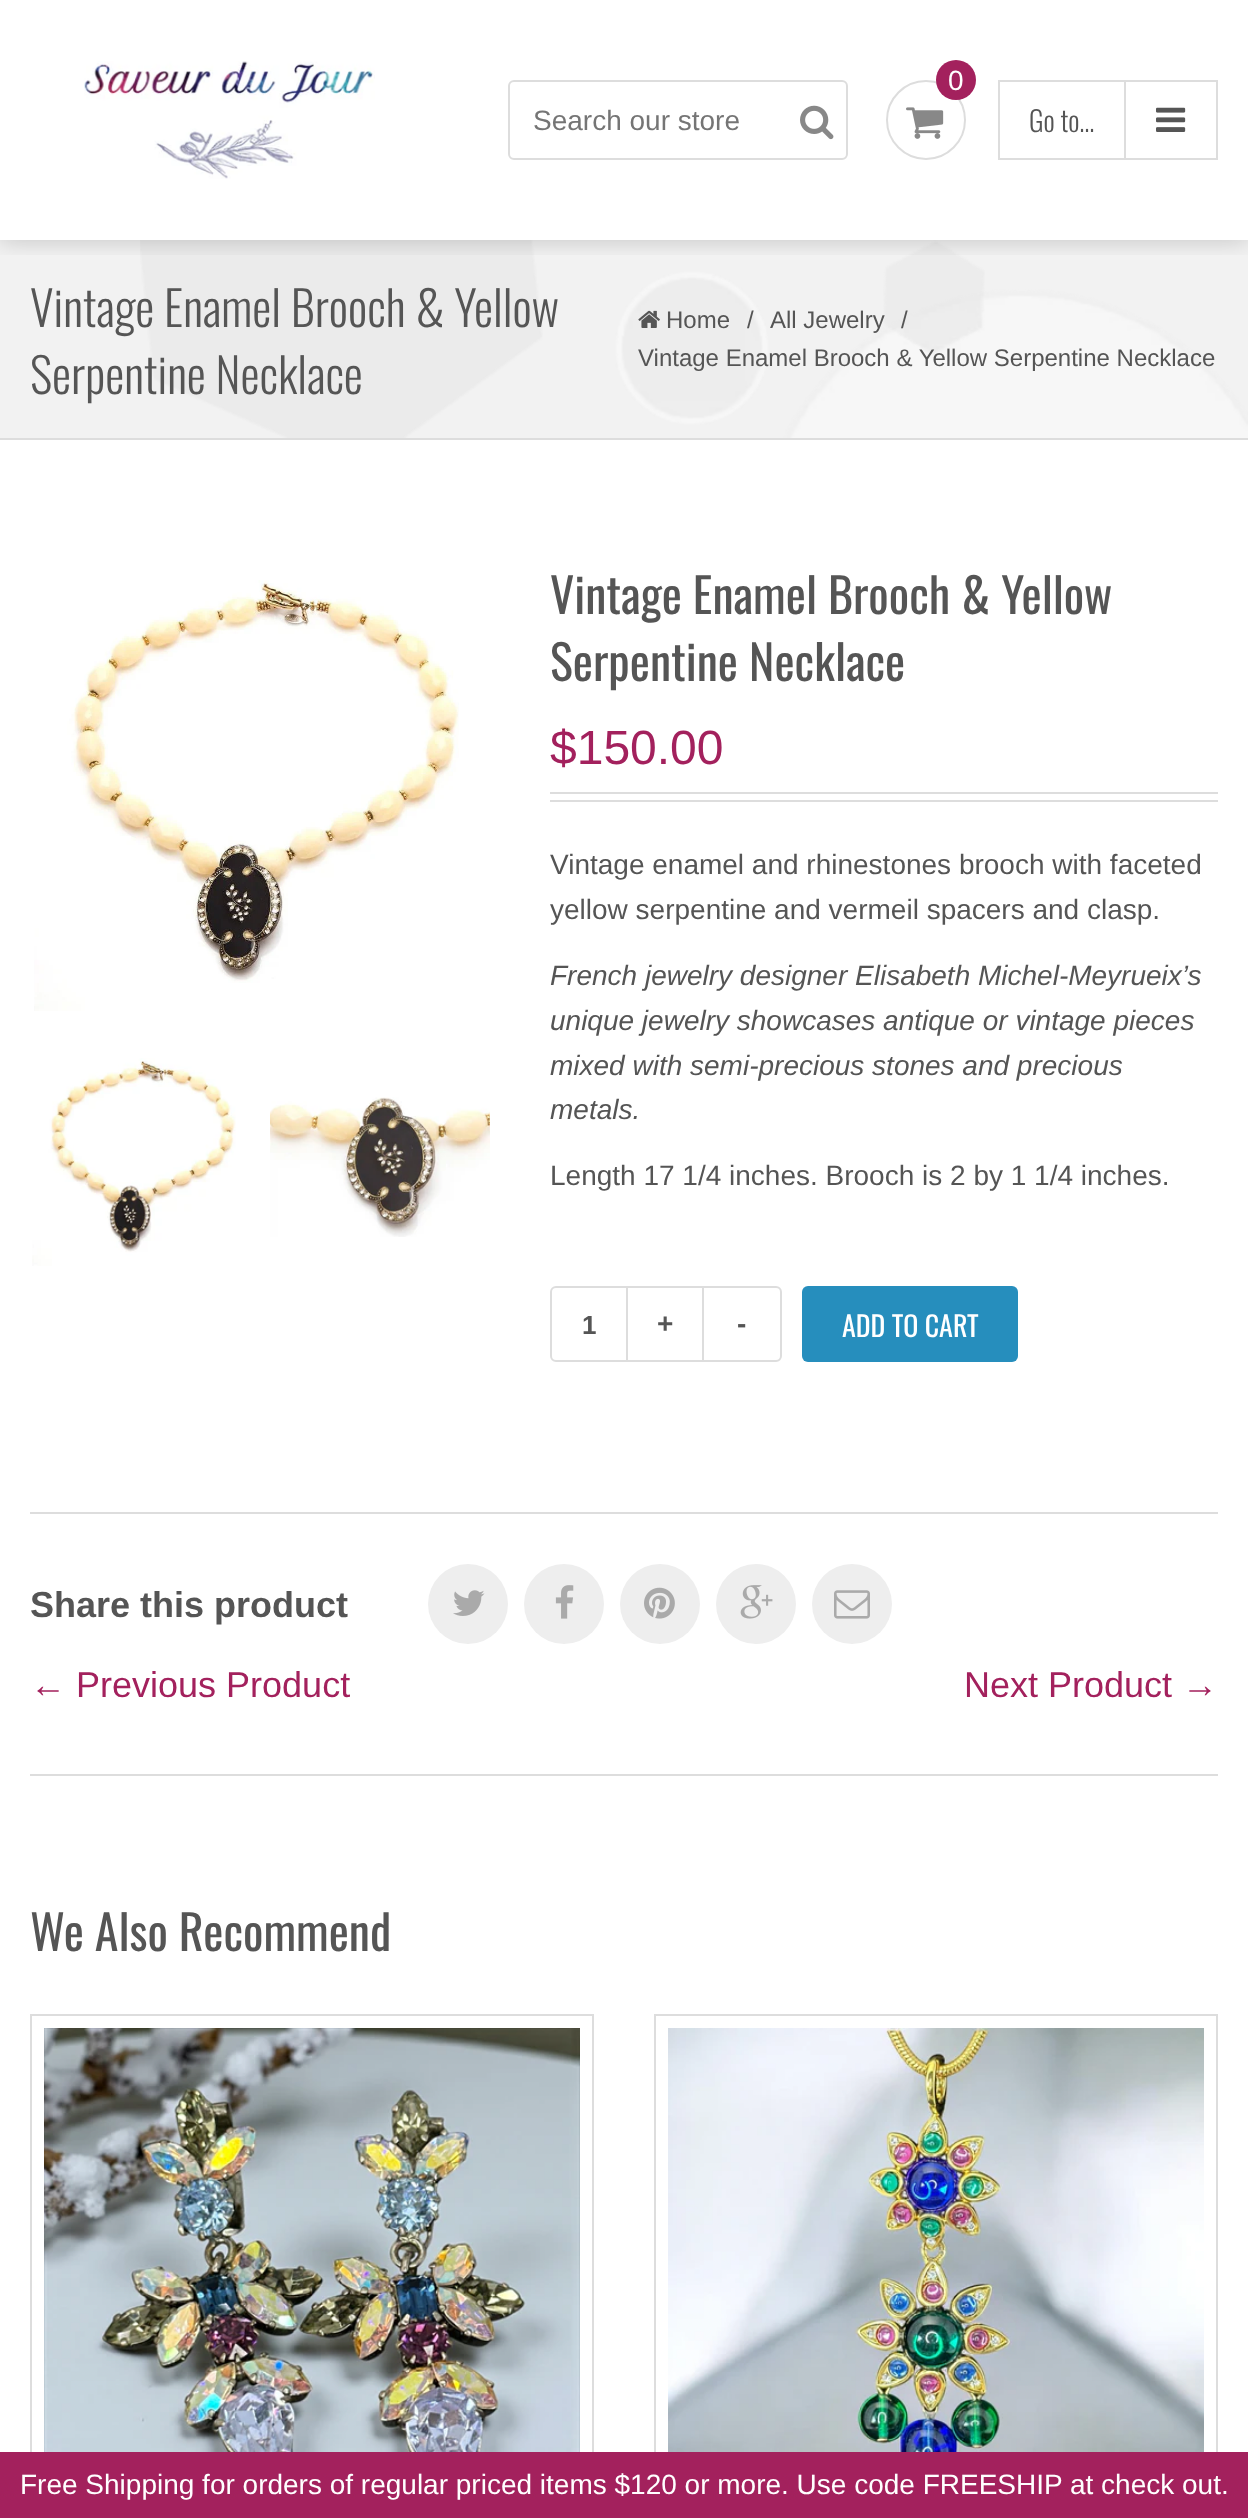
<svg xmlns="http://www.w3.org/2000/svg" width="1248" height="2518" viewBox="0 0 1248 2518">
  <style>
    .t1 { font: 28px Liberation Sans; fill: #fff; }
    .t2 { font: 28px Liberation Sans; fill: #757575; }
    .t3 { font: 300 28px Oswald; fill: #555; }
    .t4 { font: 300 48px Oswald; fill: #555; }
    .t5 { font: 24px Liberation Sans; fill: #555; }
    .t6 { font: 48px Oswald; fill: #555; }
    .t7 { font: 48px Liberation Sans; fill: #a3215d; }
    .t8 { font: 28px Liberation Sans; fill: #555; }
    .t9 { font: italic 28px Liberation Sans; fill: #555; }
    .t10 { font: bold 26px Liberation Sans; fill: #555; }
    .t11 { font: bold 28px Liberation Sans; fill: #555; }
    .t12 { font: 28px Oswald; fill: #fff; }
    .t13 { font: bold 36px Liberation Sans; fill: #555; }
    .t14 { font: 36px Liberation Sans; fill: #a3215d; }
  </style>
  <defs>
    <clipPath id="clip1"><rect x="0" y="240" width="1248" height="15"/></clipPath>
  </defs>
  <rect width="100%" height="100%" fill="#fff"/>
  <rect x="0" y="240" width="1248" height="198" fill="#f2f2f2"/>
  <image x="140" y="240" width="1108" height="198" href="images/5.png"/>
  <g clip-path="url(#clip1)">
    <rect x="0" y="0" width="1248" height="240" fill="#00000033" filter="blur(12px)"/>
  </g>
  <image x="84" y="61" width="291" height="118" href="images/1.png"/>
  <circle cx="926" cy="120" r="39" fill="none" stroke="#ddd" stroke-width="2"/>
  <circle cx="956" cy="80" r="20" fill="#a3215d"/>
  <text x="948" y="90" class="t1">0</text>
  <image x="906" y="107" width="38" height="32" href="images/2.png"/>
  <rect x="509" y="81" width="338" height="78" rx="5" fill="none" stroke="#ddd" stroke-width="2"/>
  <text x="533" y="130" class="t2">Search our store</text>
  <image x="800" y="105" width="34" height="35" href="images/3.png"/>
  <rect x="999" y="81" width="218" height="78" fill="none" stroke="#ddd" stroke-width="2"/>
  <text x="1029" y="132" class="t3">Go to...</text>
  <rect x="1124" y="82" width="2" height="76" fill="#ddd"/>
  <image x="1156" y="107" width="30" height="25" href="images/4.png"/>
  <rect x="0" y="438" width="1248" height="2" fill="#ddd"/>
  <text x="30" y="327" class="t4">Vintage Enamel Brooch &amp; Yellow</text>
  <text x="30" y="394" class="t4">Serpentine Necklace</text>
  <image x="638" y="310" width="22" height="18" href="images/6.png"/>
  <text x="666" y="328" class="t5">Home</text>
  <text x="747" y="328" class="t5">/</text>
  <text x="770" y="328" class="t5">All Jewelry</text>
  <text x="901" y="328" class="t5">/</text>
  <text x="638" y="366" class="t5">Vintage Enamel Brooch &amp; Yellow Serpentine Necklace</text>
  <image x="34" y="580" width="425" height="431" href="images/7.png"/>
  <image x="32" y="1058" width="204" height="208" href="images/8.png"/>
  <image x="270" y="1097" width="220" height="140" href="images/9.png"/>
  <text x="550" y="614" class="t6">Vintage Enamel Brooch &amp; Yellow</text>
  <text x="550" y="681" class="t6">Serpentine Necklace</text>
  <rect x="550" y="792" width="668" height="2" fill="#ddd"/>
  <text x="550" y="764" class="t7">$150.00</text>
  <rect x="550" y="800" width="668" height="2" fill="#ddd"/>
  <text x="550" y="874" class="t8">Vintage enamel and rhinestones brooch with faceted</text>
  <text x="550" y="919" class="t8">yellow serpentine and vermeil spacers and clasp.</text>
  <text x="550" y="985" class="t9">French jewelry designer Elisabeth Michel-Meyrueix’s</text>
  <text x="550" y="1030" class="t9">unique jewelry showcases antique or vintage pieces</text>
  <text x="550" y="1075" class="t9">mixed with semi-precious stones and precious</text>
  <text x="550" y="1119" class="t9">metals.</text>
  <text x="550" y="1185" class="t8">Length 17 1/4 inches. Brooch is 2 by 1 1/4 inches.</text>
  <rect x="551" y="1287" width="230" height="74" rx="5" fill="none" stroke="#ddd" stroke-width="2"/>
  <rect x="626" y="1288" width="2" height="72" fill="#ddd"/>
  <text x="582" y="1334" class="t10">1</text>
  <rect x="702" y="1288" width="2" height="72" fill="#ddd"/>
  <text x="657" y="1333" class="t11">+</text>
  <text x="737" y="1333" class="t11">-</text>
  <rect x="802" y="1286" width="216" height="76" rx="6" fill="#268ebd"/>
  <text x="842" y="1337" class="t12">ADD TO CART</text>
  <rect x="30" y="1512" width="1188" height="2" fill="#ddd"/>
  <rect x="30" y="1774" width="1188" height="2" fill="#ddd"/>
  <text x="30" y="1617" class="t13">Share this product</text>
  <circle cx="468" cy="1604" r="40" fill="#eee"/>
  <image x="453" y="1590" width="32" height="26" href="images/10.png"/>
  <circle cx="564" cy="1604" r="40" fill="#eee"/>
  <image x="555" y="1585" width="19" height="34" href="images/11.png"/>
  <circle cx="660" cy="1604" r="40" fill="#eee"/>
  <image x="644" y="1587" width="31" height="32" href="images/12.png"/>
  <circle cx="756" cy="1604" r="40" fill="#eee"/>
  <image x="740" y="1585" width="33" height="34" href="images/13.png"/>
  <circle cx="852" cy="1604" r="40" fill="#eee"/>
  <image x="834" y="1590" width="36" height="29" href="images/14.png"/>
  <text x="30" y="1697" class="t14">← Previous Product</text>
  <text x="964" y="1697" class="t14">Next Product →</text>
  <text x="30" y="1951" class="t6">We Also Recommend</text>
  <rect x="31" y="2015" width="562" height="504" fill="none" stroke="#ddd" stroke-width="2"/>
  <image x="44" y="2028" width="536" height="424" href="images/15.png"/>
  <rect x="655" y="2015" width="562" height="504" fill="none" stroke="#ddd" stroke-width="2"/>
  <image x="668" y="2028" width="536" height="424" href="images/16.png"/>
  <rect x="0" y="2452" width="1248" height="66" fill="#a3215d"/>
  <text x="20" y="2494" class="t1">Free Shipping for orders of regular priced items $120 or more. Use code FREESHIP at check out.</text>
</svg>
